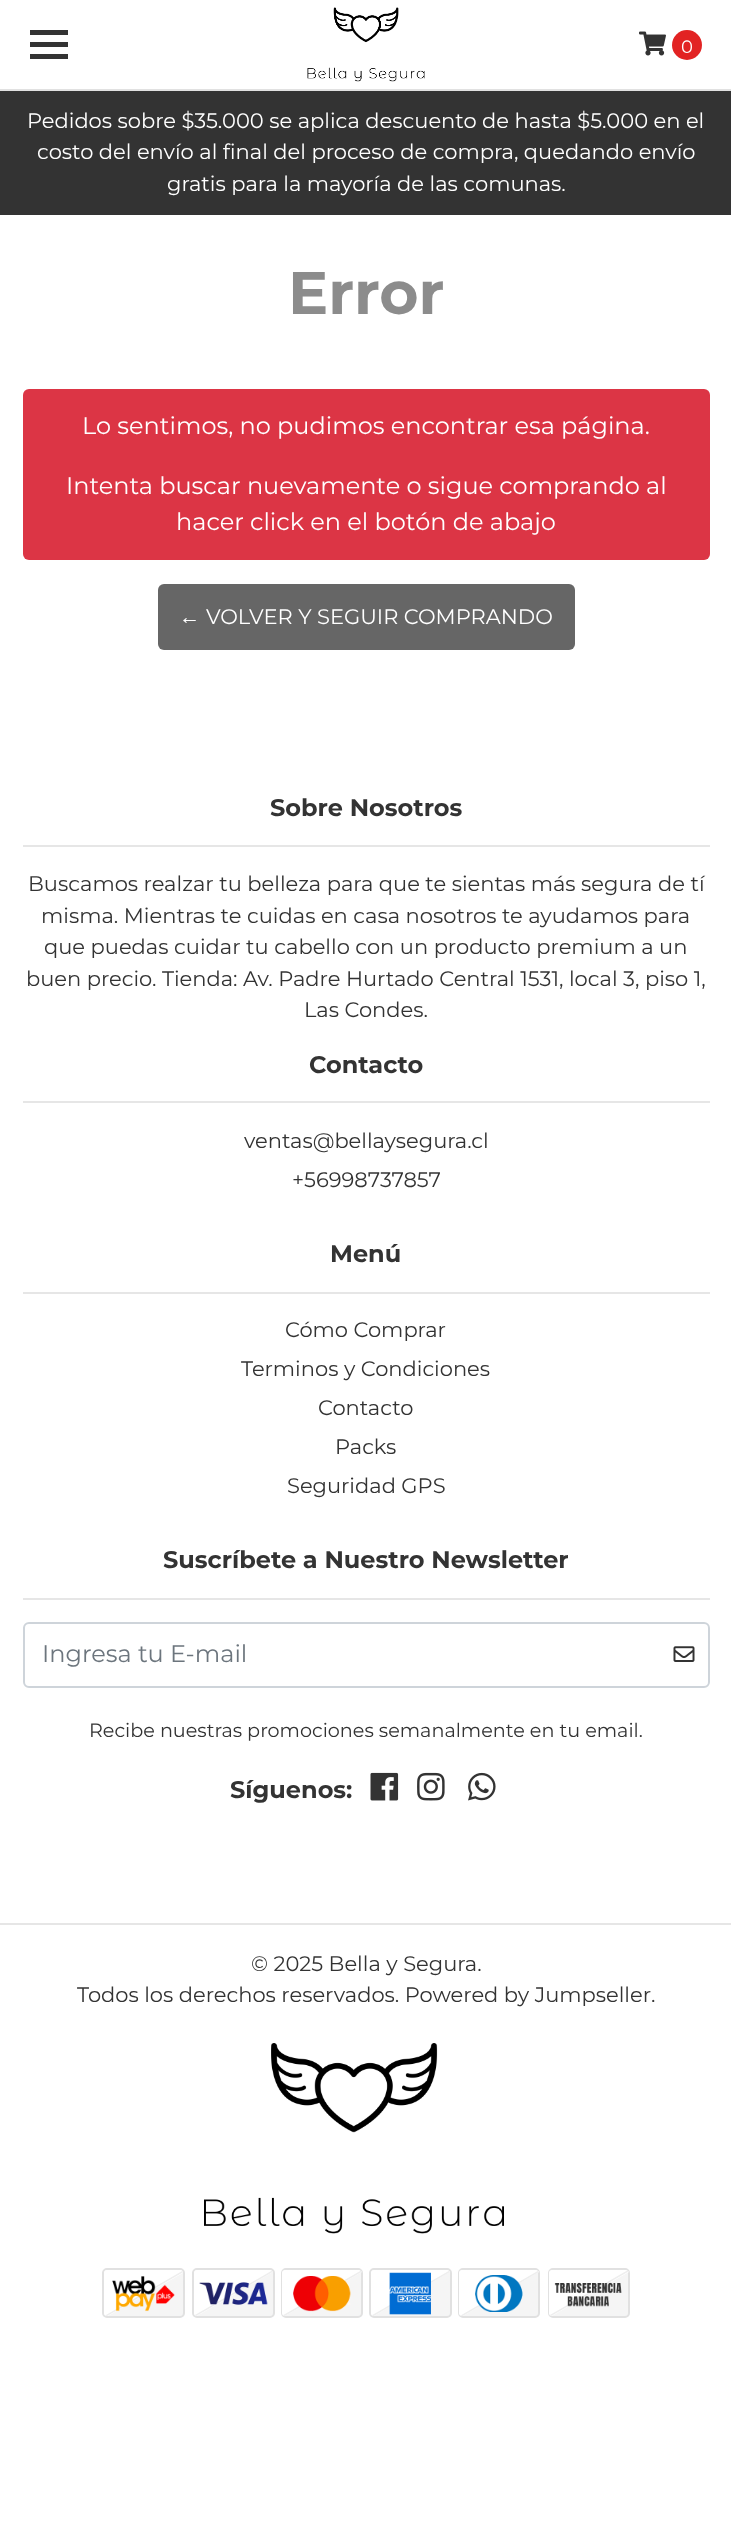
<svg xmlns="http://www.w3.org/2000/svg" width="731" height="2531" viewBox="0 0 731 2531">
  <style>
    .t1 { font: 18px Montserrat; fill: #fff; }
    .t2 { font: 21px Montserrat; fill: #fff; }
    .t3 { font: bold 60px Montserrat; fill: #8c8c8c; }
    .t4 { font: 24px Montserrat; fill: #fff; }
    .t5 { font: 21px Liberation Sans; fill: #fff; }
    .t6 { font: bold 24px Montserrat; fill: #333; }
    .t7 { font: 21px Montserrat; fill: #333; }
    .t8 { font: 24px Montserrat; fill: #6c757d; }
    .t9 { font: 19.2px Montserrat; fill: #333; }
  </style>
  <defs>
    <clipPath id="clip1"><rect x="104" y="2270" width="79" height="46" rx="3"/></clipPath>
    <clipPath id="clip2"><rect x="194" y="2270" width="79" height="46" rx="3"/></clipPath>
    <clipPath id="clip3"><rect x="282" y="2270" width="80" height="46" rx="3"/></clipPath>
    <clipPath id="clip4"><rect x="371" y="2270" width="79" height="46" rx="3"/></clipPath>
    <clipPath id="clip5"><rect x="459" y="2270" width="80" height="46" rx="3"/></clipPath>
    <clipPath id="clip6"><rect x="549" y="2270" width="80" height="46" rx="3"/></clipPath>
  </defs>
  <rect width="100%" height="100%" fill="#fff"/>
  <rect x="30" y="30" width="38" height="5" fill="#333"/>
  <rect x="30" y="42" width="38" height="5" fill="#333"/>
  <rect x="30" y="54" width="38" height="5" fill="#333"/>
  <rect x="0" y="89" width="731" height="2" fill="#e1e1e1"/>
  <image x="307" y="7" width="118" height="75" href="images/1.png"/>
  <image x="639" y="31" width="27" height="25" href="images/2.png"/>
  <circle cx="687" cy="45" r="15" fill="#e22323"/>
  <text x="681" y="53" class="t1">0</text>
  <rect x="0" y="91" width="731" height="124" fill="#333"/>
  <text x="27" y="128" class="t2">Pedidos sobre $35.000 se aplica descuento de hasta $5.000 en el</text>
  <text x="37" y="159" class="t2">costo del envío al final del proceso de compra, quedando envío</text>
  <text x="167" y="191" class="t2">gratis para la mayoría de las comunas.</text>
  <text x="288" y="314" class="t3">Error</text>
  <rect x="23" y="389" width="687" height="171" rx="6" fill="#dc3545"/>
  <text x="82" y="434" class="t4">Lo sentimos, no pudimos encontrar esa página.</text>
  <text x="66" y="494" class="t4">Intenta buscar nuevamente o sigue comprando al</text>
  <text x="176" y="530" class="t4">hacer click en el botón de abajo</text>
  <rect x="158" y="584" width="417" height="66" rx="6" fill="#666"/>
  <text x="179" y="624" class="t5">←</text>
  <text x="206" y="624" class="t2">VOLVER Y SEGUIR COMPRANDO</text>
  <rect x="23" y="845" width="687" height="2" fill="#e6e6e6"/>
  <text x="270" y="816" class="t6">Sobre Nosotros</text>
  <text x="28" y="891" class="t7">Buscamos realzar tu belleza para que te sientas más segura de tí</text>
  <text x="41" y="923" class="t7">misma. Mientras te cuidas en casa nosotros te ayudamos para</text>
  <text x="44" y="954" class="t7">que puedas cuidar tu cabello con un producto premium a un</text>
  <text x="26" y="986" class="t7">buen precio. Tienda: Av. Padre Hurtado Central 1531, local 3, piso 1,</text>
  <text x="304" y="1017" class="t7">Las Condes.</text>
  <rect x="23" y="1101" width="687" height="2" fill="#e6e6e6"/>
  <text x="309" y="1073" class="t6">Contacto</text>
  <text x="244" y="1148" class="t7">ventas@bellaysegura.cl</text>
  <text x="292" y="1187" class="t7">+56998737857</text>
  <rect x="23" y="1292" width="687" height="2" fill="#e6e6e6"/>
  <text x="330" y="1262" class="t6">Menú</text>
  <text x="285" y="1337" class="t7">Cómo Comprar</text>
  <text x="241" y="1376" class="t7">Terminos y Condiciones</text>
  <text x="318" y="1415" class="t7">Contacto</text>
  <text x="335" y="1454" class="t7">Packs</text>
  <text x="287" y="1493" class="t7">Seguridad GPS</text>
  <rect x="23" y="1598" width="687" height="2" fill="#e6e6e6"/>
  <text x="163" y="1568" class="t6">Suscríbete a Nuestro Newsletter</text>
  <rect x="24" y="1623" width="685" height="64" rx="5" fill="none" stroke="#ced4da" stroke-width="2"/>
  <text x="42" y="1662" class="t8">Ingresa tu E-mail</text>
  <image x="673" y="1646" width="22" height="16" href="images/3.png"/>
  <text x="89" y="1737" class="t9">Recibe nuestras promociones semanalmente en tu email.</text>
  <text x="230" y="1798" class="t6">Síguenos:</text>
  <image x="370" y="1772" width="29" height="29" href="images/4.png"/>
  <image x="417" y="1772" width="28" height="29" href="images/5.png"/>
  <image x="468" y="1772" width="28" height="29" href="images/6.png"/>
  <rect x="0" y="1923" width="731" height="2" fill="#e6e6e6"/>
  <text x="251" y="1971" class="t7">© 2025 Bella y Segura.</text>
  <text x="77" y="2002" class="t7">Todos los derechos reservados. Powered by Jumpseller.</text>
  <image x="204" y="2043" width="300" height="191" href="images/7.png"/>
  <rect x="103" y="2269" width="81" height="48" rx="4" fill="#f5f5f5" stroke="#e1e1e1" stroke-width="2"/>
  <path d="M107 2270H180C182 2270 183 2271 183 2273L108 2316H107C105 2316 104 2315 104 2313V2273C104 2271 105 2270 107 2270Z" fill="#fff"/>
  <g clip-path="url(#clip1)">
    <path d="M131.5 2129.5L205.5 2258.5L77 2332.5L3 2204Z" fill="none" stroke="#eee" stroke-width="1.5"/>
  </g>
  <image x="112" y="2276" width="63" height="36" href="images/8.png"/>
  <rect x="193" y="2269" width="81" height="48" rx="4" fill="#f5f5f5" stroke="#e1e1e1" stroke-width="2"/>
  <path d="M197 2270H270C271 2270 272 2271 273 2272L197 2316C195 2316 194 2315 194 2313V2273C194 2271 195 2270 197 2270Z" fill="#fff"/>
  <g clip-path="url(#clip2)">
    <path d="M220 2129.5L294.5 2258.5L166 2332.5L91.5 2204Z" fill="none" stroke="#eee" stroke-width="1.5"/>
  </g>
  <image x="199" y="2282" width="69" height="23" href="images/9.png"/>
  <rect x="282" y="2269" width="80" height="48" rx="4" fill="#f5f5f5" stroke="#e1e1e1" stroke-width="2"/>
  <path d="M285 2270H359C360 2270 361 2271 362 2272L285 2316C283 2316 282 2315 282 2313V2273C282 2271 283 2270 285 2270Z" fill="#fff"/>
  <g clip-path="url(#clip3)">
    <path d="M309 2129.5L383.5 2258.5L254.5 2332.5L180.5 2204Z" fill="none" stroke="#eee" stroke-width="1.5"/>
  </g>
  <image x="293" y="2276" width="58" height="36" href="images/10.png"/>
  <rect x="370" y="2269" width="81" height="48" rx="4" fill="#f5f5f5" stroke="#e1e1e1" stroke-width="2"/>
  <path d="M374 2270H447C448 2270 450 2271 450 2272L374 2316C372 2316 371 2315 371 2313V2273C371 2271 372 2270 374 2270Z" fill="#fff"/>
  <g clip-path="url(#clip4)">
    <path d="M398 2129.5L472 2258.5L343.5 2332.5L269 2204Z" fill="none" stroke="#eee" stroke-width="1.5"/>
  </g>
  <image x="389" y="2272" width="42" height="43" href="images/11.png"/>
  <rect x="459" y="2269" width="80" height="48" rx="4" fill="#f5f5f5" stroke="#e1e1e1" stroke-width="2"/>
  <path d="M462 2270H536C537 2270 539 2271 539 2272L463 2316H462C460 2316 459 2315 459 2313V2273C459 2271 460 2270 462 2270Z" fill="#fff"/>
  <g clip-path="url(#clip5)">
    <path d="M486.5 2129.5L561 2258.5L432.5 2332.5L358 2204Z" fill="none" stroke="#eee" stroke-width="1.5"/>
  </g>
  <image x="475" y="2275" width="48" height="37" href="images/12.png"/>
  <rect x="549" y="2269" width="80" height="48" rx="4" fill="#f5f5f5" stroke="#e1e1e1" stroke-width="2"/>
  <path d="M552 2270H626C627 2270 628 2271 629 2272L552 2316C550 2316 549 2315 549 2313V2273C549 2271 550 2270 552 2270Z" fill="#fff"/>
  <g clip-path="url(#clip6)">
    <path d="M575.5 2129.5L649.5 2258.5L521 2332.5L447 2204Z" fill="none" stroke="#eee" stroke-width="1.5"/>
  </g>
  <image x="554" y="2282" width="68" height="25" href="images/13.png"/>
</svg>
